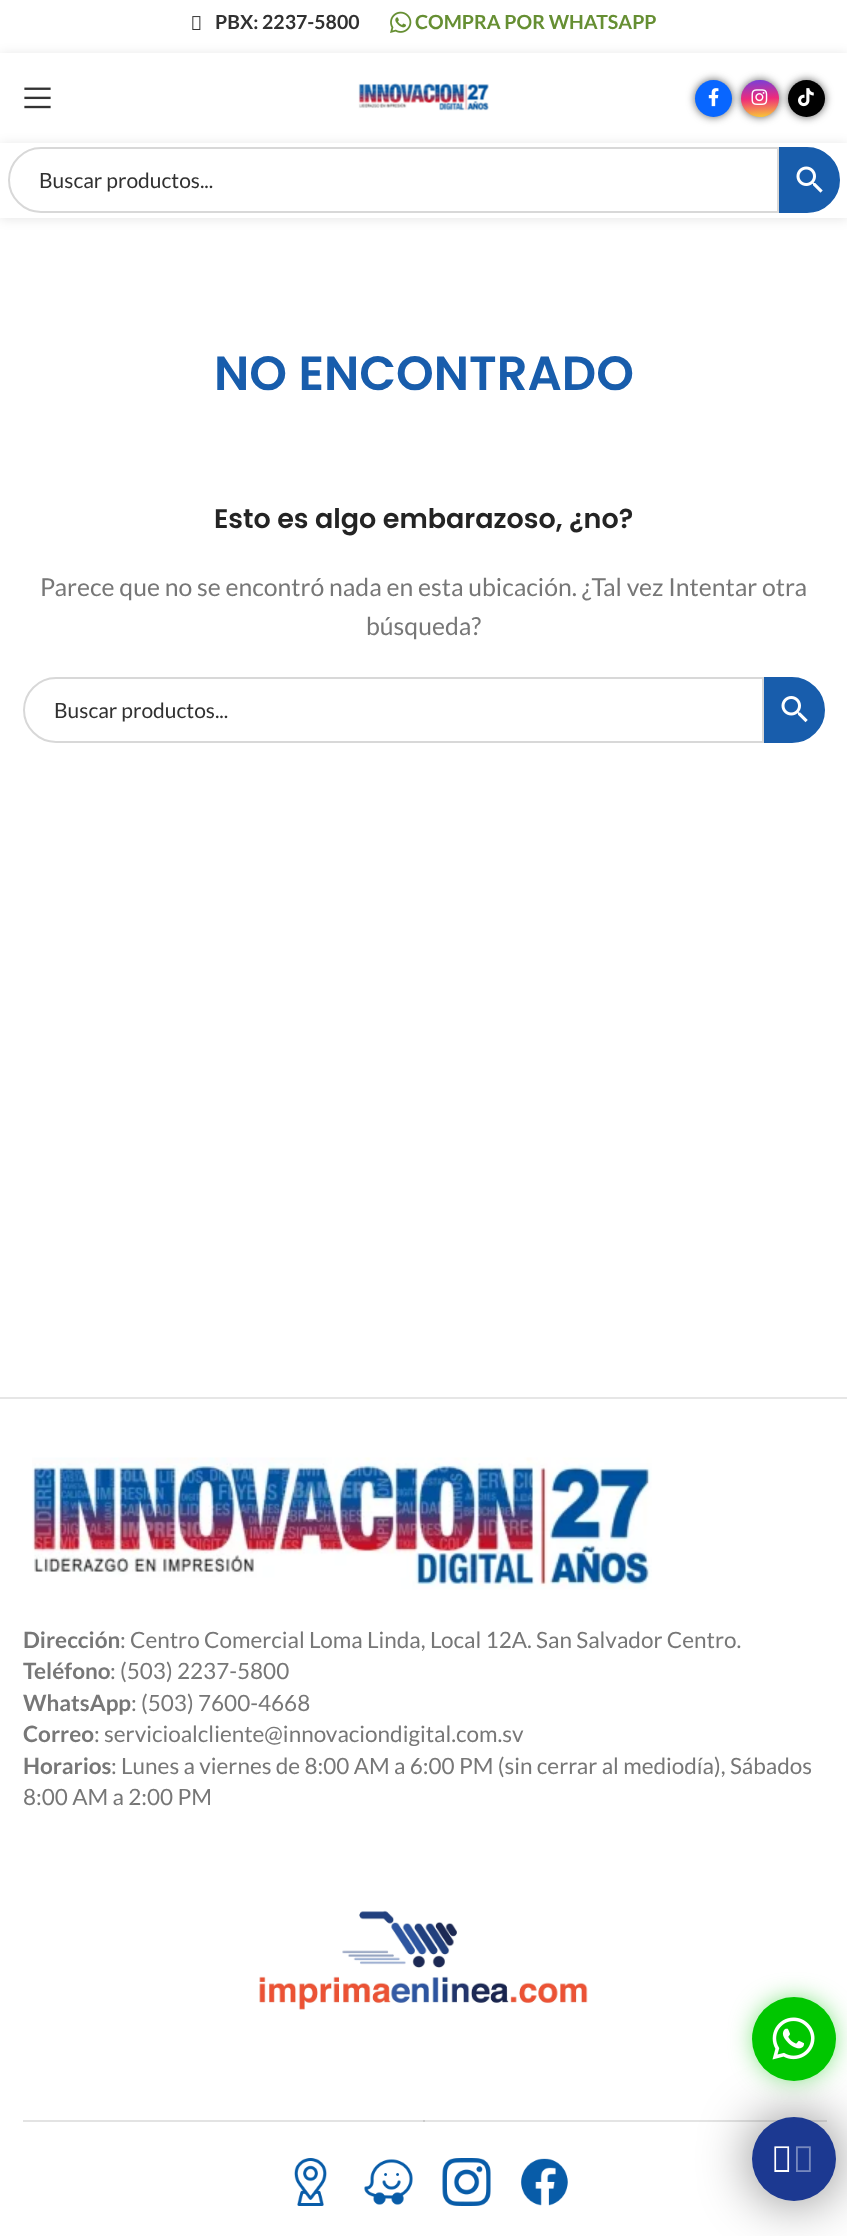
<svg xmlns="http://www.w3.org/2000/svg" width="847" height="2236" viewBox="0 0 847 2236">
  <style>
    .t1 { font: bold 19.5px Lato; fill: #313131; }
    .t2 { font: bold 19.5px Lato; fill: #668f33; }
    .t3 { font: 21px Lato; fill: #313131; }
    .t4 { font: 600 48px Poppins; fill: #185dac; }
    .t5 { font: 600 27px Poppins; fill: #242424; }
    .t6 { font: 24.75px Lato; fill: #777; }
    .t7 { font: bold 22.5px Lato; fill: #777; }
    .t8 { font: 22.5px Lato; fill: #777; }
  </style>
  <defs>
    <linearGradient id="g1" gradientUnits="userSpaceOnUse" x1="761" y1="118" x2="759" y2="79"><stop offset="0" stop-color="#f9ce34"/><stop offset="0.5" stop-color="#ee2a7b"/><stop offset="1" stop-color="#7440dc"/></linearGradient>
  </defs>
  <rect width="100%" height="100%" fill="#fff"/>
  <rect x="23" y="2120" width="402" height="2" fill="#e3e3e3"/>
  <image x="192" y="16" width="9" height="14" href="images/1.png"/>
  <text x="215" y="29" class="t1">PBX: 2237-5800</text>
  <image x="390" y="11" width="22" height="22" href="images/2.png"/>
  <text x="415" y="29" class="t2">COMPRA POR WHATSAPP</text>
  <rect x="0" y="54" width="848" height="90" fill="#0000001a" filter="blur(6px)"/>
  <rect x="0" y="53" width="847" height="90" fill="#fff"/>
  <image x="24" y="87" width="27" height="22" href="images/3.png"/>
  <image x="358" y="83" width="131" height="28" href="images/4.png"/>
  <rect x="695" y="80" width="37" height="37" rx="18.5" fill="#5b5b5b" filter="blur(4px)"/>
  <circle cx="713.5" cy="98.5" r="18.5" fill="#0866ff"/>
  <image x="708" y="88" width="11" height="19" href="images/5.png"/>
  <rect x="741" y="80" width="38" height="37" rx="18.5" fill="#5b5b5b" filter="blur(4px)"/>
  <rect x="741" y="80" width="38" height="37" rx="18.5" fill="url(#g1)"/>
  <image x="751" y="89" width="17" height="16" href="images/6.png"/>
  <rect x="788" y="80" width="37" height="37" rx="18.5" fill="#5b5b5b" filter="blur(4px)"/>
  <circle cx="806.5" cy="98.5" r="18.5" fill="#010101"/>
  <image x="798" y="88" width="16" height="19" href="images/7.png"/>
  <rect x="0" y="144" width="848" height="75" fill="#0000001a" filter="blur(6px)"/>
  <rect x="0" y="143" width="847" height="75" fill="#fff"/>
  <path d="M778 148H807C824.5 148 839 162.5 839 180C839 197.5 824.5 212 807 212H778Z" fill="#185dac" stroke="#185dac" stroke-width="2"/>
  <path d="M41 148H778V212H41C23.5 212 9 197.5 9 180C9 162.5 23.5 148 41 148Z" fill="#fff" stroke="#d8d8d8" stroke-width="2"/>
  <text x="39" y="188" class="t3">Buscar productos...</text>
  <image x="796" y="166" width="27" height="27" href="images/8.png"/>
  <text x="214" y="390" class="t4">NO ENCONTRADO</text>
  <text x="214" y="528" class="t5">Esto es algo embarazoso, ¿no?</text>
  <text x="40" y="596" class="t6">Parece que no se encontró nada en esta ubicación. ¿Tal vez Intentar otra</text>
  <text x="366" y="635" class="t6">búsqueda?</text>
  <path d="M763 678H792C809.5 678 824 692.5 824 710C824 727.5 809.5 742 792 742H763Z" fill="#185dac" stroke="#185dac" stroke-width="2"/>
  <path d="M56 678H763V742H56C38.5 742 24 727.5 24 710C24 692.5 38.5 678 56 678Z" fill="#fff" stroke="#d8d8d8" stroke-width="2"/>
  <text x="54" y="718" class="t3">Buscar productos...</text>
  <image x="781" y="696" width="27" height="27" href="images/9.png"/>
  <rect x="0" y="1397" width="847" height="2" fill="#e6e6e6"/>
  <image x="32" y="1457" width="620" height="133" href="images/10.png"/>
  <text x="23" y="1648" class="t7">Dirección</text>
  <text x="120" y="1648" class="t8">: Centro Comercial Loma Linda, Local 12A. San Salvador Centro.</text>
  <text x="23" y="1679" class="t7">Teléfono</text>
  <text x="110" y="1679" class="t8">: (503) 2237-5800</text>
  <text x="23" y="1711" class="t7">WhatsApp</text>
  <text x="131" y="1711" class="t8">: (503) 7600-4668</text>
  <text x="23" y="1742" class="t7">Correo</text>
  <text x="94" y="1742" class="t8">: servicioalcliente@innovaciondigital.com.sv</text>
  <text x="23" y="1774" class="t7">Horarios</text>
  <text x="111" y="1774" class="t8">: Lunes a viernes de 8:00 AM a 6:00 PM (sin cerrar al mediodía), Sábados</text>
  <text x="23" y="1805" class="t8">8:00 AM a 2:00 PM</text>
  <image x="259" y="1910" width="329" height="100" href="images/11.png"/>
  <rect x="423" y="2120" width="404" height="2" fill="#e4e4e4"/>
  <rect x="423" y="2120" width="2" height="2" fill="#cbcbcb"/>
  <image x="294" y="2158" width="33" height="48" href="images/12.png"/>
  <image x="364" y="2159" width="49" height="46" href="images/13.png"/>
  <image x="442" y="2158" width="49" height="48" href="images/14.png"/>
  <image x="520" y="2158" width="48" height="48" href="images/15.png"/>
  <rect x="752" y="2117" width="84" height="84" rx="42" fill="#00000080" filter="blur(27px)"/>
  <circle cx="794" cy="2159" r="42" fill="#1c3991"/>
  <rect x="761" y="2006" width="66" height="66" rx="33" fill="#00c600" filter="blur(15px)"/>
  <circle cx="794" cy="2039" r="42" fill="#00c600"/>
  <image x="772" y="2017" width="43" height="43" href="images/16.png"/>
  <path d="M774.5 2172V2146.5H789V2172ZM776 2170H787.5V2148H776Z" fill="#fff"/>
  <image x="774" y="2146" width="37" height="26" href="images/17.png"/>
</svg>
